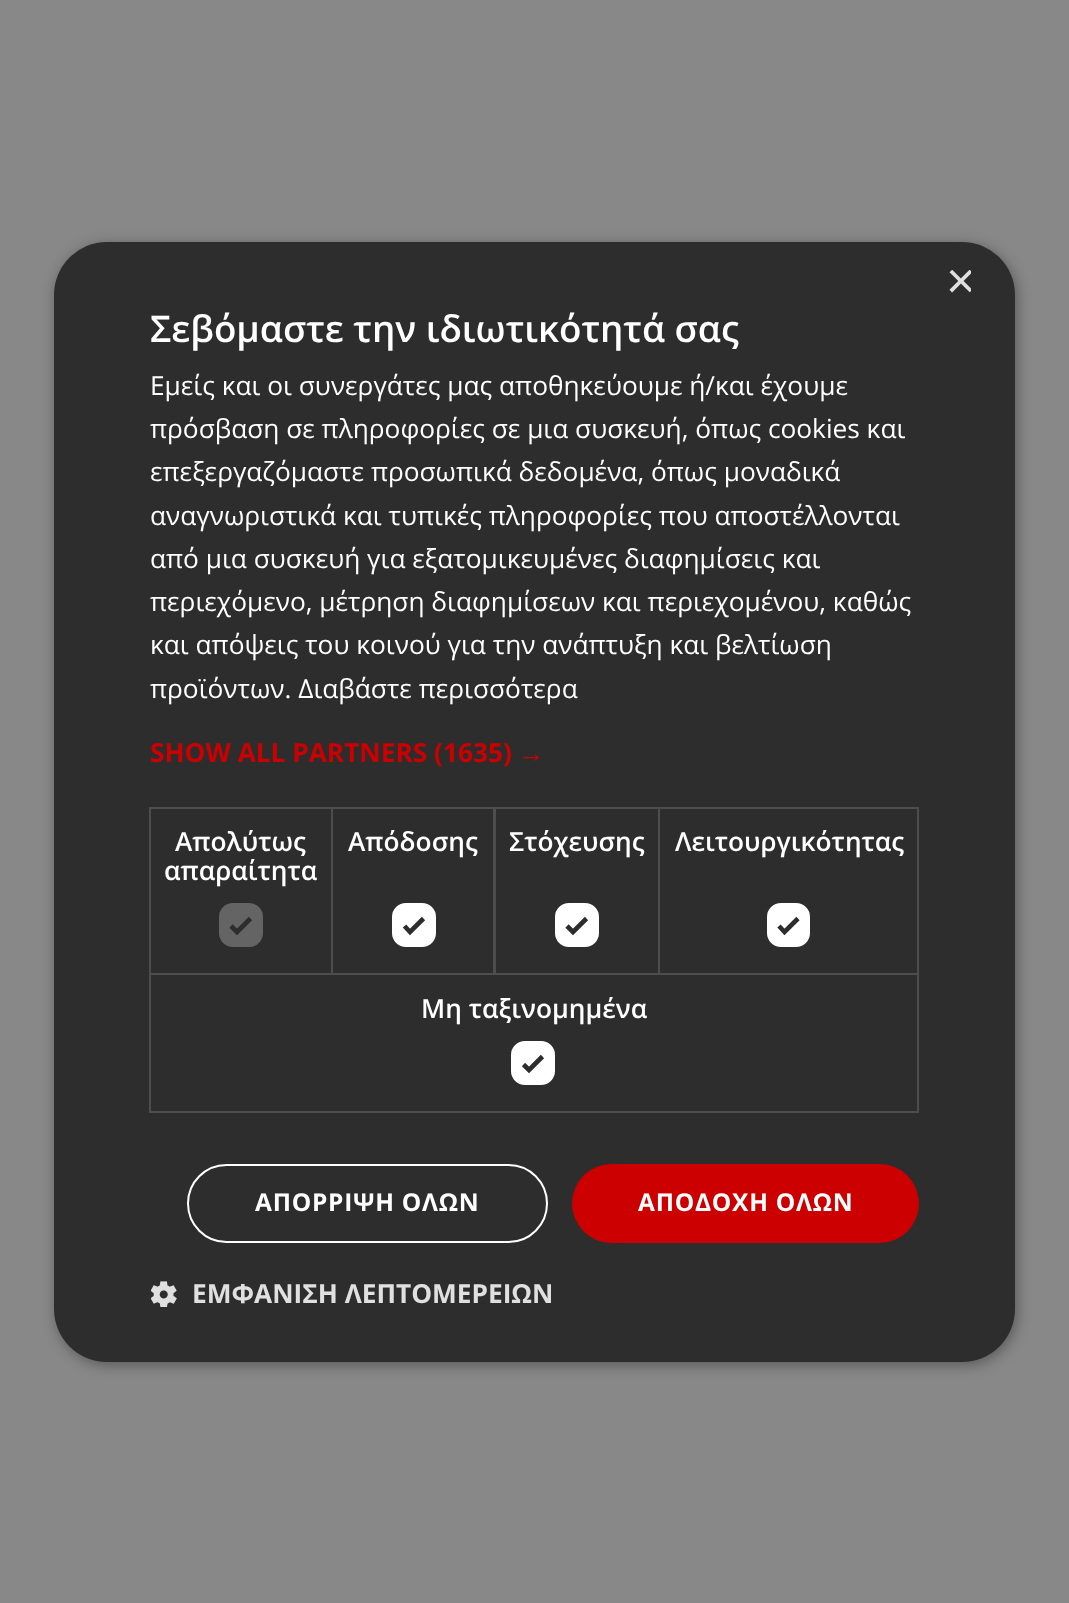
<svg xmlns="http://www.w3.org/2000/svg" width="1069" height="1603" viewBox="0 0 1069 1603">
  <style>
    .t1 { font: 51px Liberation Sans; fill: #e0e0e0; }
    .t2 { font: 600 36.75px Open Sans; fill: #fff; }
    .t3 { font: 26.25px Open Sans; fill: #fff; }
    .t4 { font: bold 26.25px Open Sans; fill: #c00; }
    .t5 { font: bold 26.25px Liberation Sans; fill: #c00; }
    .t6 { font: 600 26.25px Open Sans; fill: #fff; }
    .t7 { font: bold 24.5px Open Sans; letter-spacing: 0.75px; fill: #fff; }
    .t8 { font: bold 26.25px Open Sans; fill: #e0e0e0; }
  </style>
  <defs>
    <clipPath id="clip1"><rect x="945" y="270" width="26" height="26"/></clipPath>
  </defs>
  <rect width="100%" height="100%" fill="#888"/>
  <rect x="56" y="245" width="961" height="1120" rx="53" fill="#00000059" filter="blur(7px)"/>
  <rect x="54" y="242" width="961" height="1120" rx="53" fill="#2d2d2d"/>
  <g clip-path="url(#clip1)">
    <text x="946" y="298" class="t1">×</text>
  </g>
  <text x="150" y="342" class="t2">Σεβόμαστε την ιδιωτικότητά σας</text>
  <text x="150" y="395" class="t3">Εμείς και οι συνεργάτες μας αποθηκεύουμε ή/και έχουμε</text>
  <text x="150" y="438" class="t3">πρόσβαση σε πληροφορίες σε μια συσκευή, όπως cookies και</text>
  <text x="150" y="481" class="t3">επεξεργαζόμαστε προσωπικά δεδομένα, όπως μοναδικά</text>
  <text x="150" y="525" class="t3">αναγνωριστικά και τυπικές πληροφορίες που αποστέλλονται</text>
  <text x="150" y="568" class="t3">από μια συσκευή για εξατομικευμένες διαφημίσεις και</text>
  <text x="150" y="611" class="t3">περιεχόμενο, μέτρηση διαφημίσεων και περιεχομένου, καθώς</text>
  <text x="150" y="654" class="t3">και απόψεις του κοινού για την ανάπτυξη και βελτίωση</text>
  <text x="150" y="698" class="t3">προϊόντων. Διαβάστε περισσότερα</text>
  <text x="150" y="762" class="t4">SHOW ALL PARTNERS (1635)</text>
  <text x="518" y="762" class="t5">→</text>
  <rect x="150" y="808" width="182" height="166" fill="none" stroke="#4d4d4d" stroke-width="2"/>
  <text x="175" y="851" class="t6">Απολύτως</text>
  <text x="164" y="880" class="t6">απαραίτητα</text>
  <rect x="219" y="903" width="44" height="44" rx="14" fill="#646464"/>
  <path d="M231 926L237 932L250.5 918.5" fill="none" stroke="#2d2d2d" stroke-width="4.6"/>
  <rect x="332" y="808" width="162" height="166" fill="none" stroke="#4d4d4d" stroke-width="2"/>
  <text x="348" y="851" class="t6">Απόδοσης</text>
  <rect x="394" y="905" width="40" height="40" rx="12" fill="#fff" stroke="#fff" stroke-width="4"/>
  <path d="M404.5 926L410 932L423.5 918.5" fill="none" stroke="#2d2d2d" stroke-width="4.6"/>
  <rect x="495" y="808" width="164" height="166" fill="none" stroke="#4d4d4d" stroke-width="2"/>
  <text x="509" y="851" class="t6">Στόχευσης</text>
  <rect x="557" y="905" width="40" height="40" rx="12" fill="#fff" stroke="#fff" stroke-width="4"/>
  <path d="M567 926L573 932L586.5 918.5" fill="none" stroke="#2d2d2d" stroke-width="4.6"/>
  <rect x="659" y="808" width="259" height="166" fill="none" stroke="#4d4d4d" stroke-width="2"/>
  <text x="675" y="851" class="t6">Λειτουργικότητας</text>
  <rect x="769" y="905" width="39" height="40" rx="12" fill="#fff" stroke="#fff" stroke-width="4"/>
  <path d="M779 926L784.5 932L798 918.5" fill="none" stroke="#2d2d2d" stroke-width="4.6"/>
  <rect x="150" y="974" width="768" height="138" fill="none" stroke="#4d4d4d" stroke-width="2"/>
  <text x="421" y="1018" class="t6">Μη ταξινομημένα</text>
  <rect x="513" y="1043" width="40" height="40" rx="12" fill="#fff" stroke="#fff" stroke-width="4"/>
  <path d="M523.5 1064.5L529 1070L542.5 1056.5" fill="none" stroke="#2d2d2d" stroke-width="4.6"/>
  <rect x="188" y="1165" width="359" height="77" rx="38.5" fill="none" stroke="#fff" stroke-width="2"/>
  <text x="255" y="1211" class="t7">ΑΠΟΡΡΙΨΗ ΟΛΩΝ</text>
  <rect x="572" y="1164" width="347" height="79" rx="39.5" fill="#c00"/>
  <text x="638" y="1211" class="t7">ΑΠΟΔΟΧΗ ΟΛΩΝ</text>
  <image x="151" y="1281" width="26" height="26" href="images/1.png"/>
  <text x="192" y="1303" class="t8">ΕΜΦΑΝΙΣΗ ΛΕΠΤΟΜΕΡΕΙΩΝ</text>
</svg>
